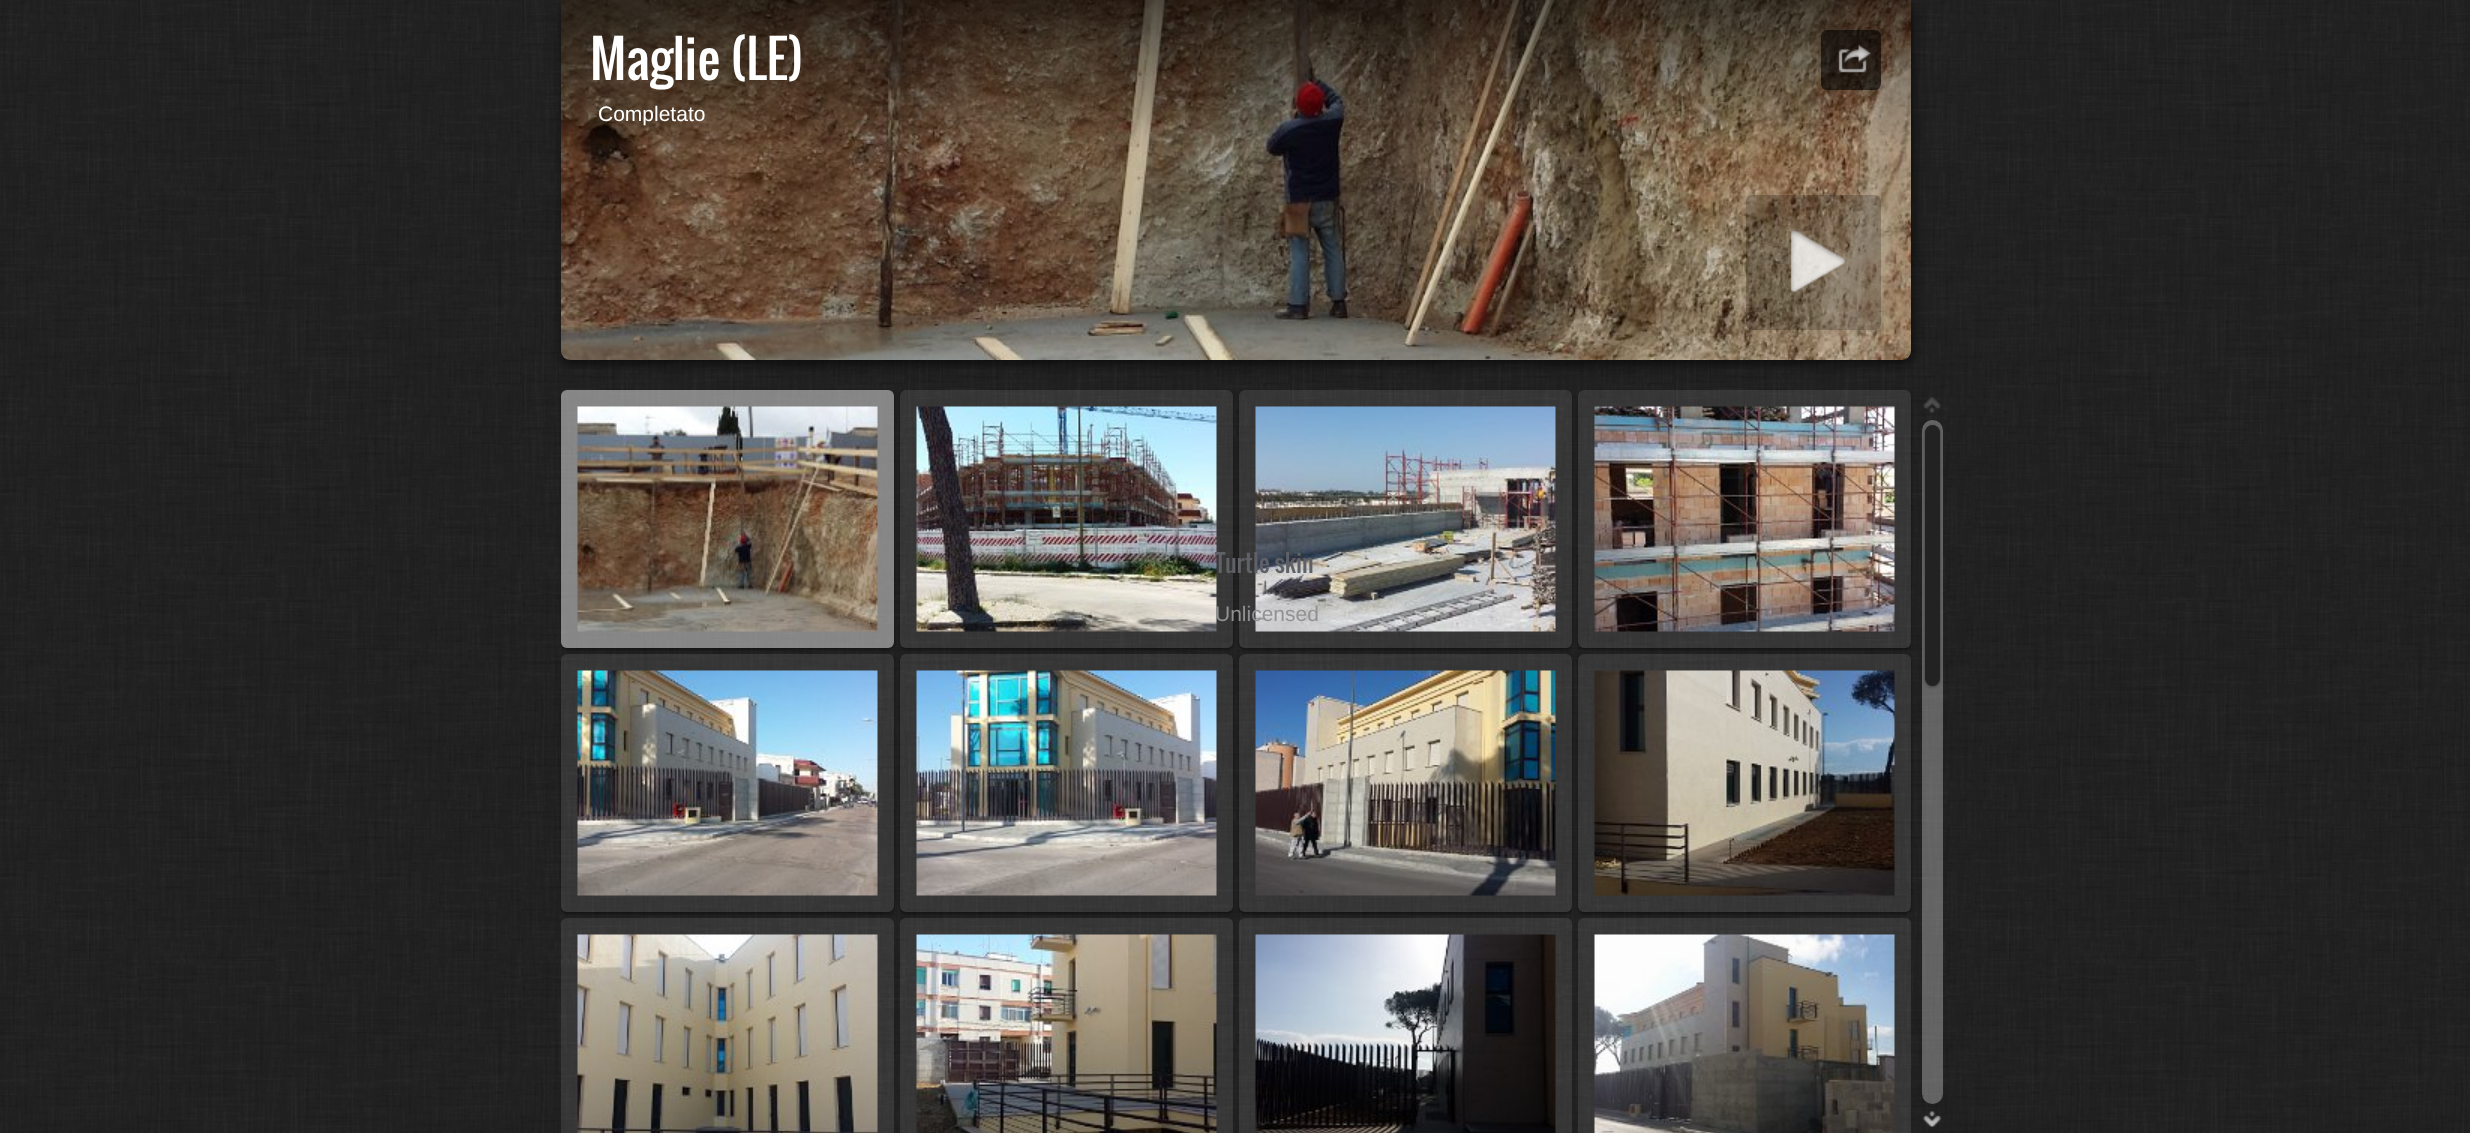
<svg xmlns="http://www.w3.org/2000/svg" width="2470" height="1133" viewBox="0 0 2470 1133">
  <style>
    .t1 { font: 50.5px Oswald; fill: #fff; }
    .t2 { font: 21px Liberation Sans; fill: #fff; }
    .t3 { font: 21px Liberation Sans; fill: #999087; }
    .t4 { font: 24px Oswald; fill: #5f6166; }
    .t5 { font: 21px Liberation Sans; fill: #929192; }
  </style>
  <defs>
    <clipPath id="clip1"><path d="M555 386H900V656H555ZM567 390H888C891.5 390 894 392.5 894 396V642C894 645.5 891.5 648 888 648H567C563.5 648 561 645.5 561 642V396C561 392.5 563.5 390 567 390Z" clip-rule="evenodd"/></clipPath>
    <clipPath id="clip2"><path d="M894 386H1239V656H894ZM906 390H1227C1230.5 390 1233 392.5 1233 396V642C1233 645.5 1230.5 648 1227 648H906C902.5 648 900 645.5 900 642V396C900 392.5 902.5 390 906 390Z" clip-rule="evenodd"/></clipPath>
    <clipPath id="clip3"><path d="M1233 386H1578V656H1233ZM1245 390H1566C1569.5 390 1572 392.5 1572 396V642C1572 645.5 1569.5 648 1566 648H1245C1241.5 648 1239 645.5 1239 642V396C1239 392.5 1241.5 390 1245 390Z" clip-rule="evenodd"/></clipPath>
    <clipPath id="clip4"><path d="M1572 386H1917V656H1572ZM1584 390H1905C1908.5 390 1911 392.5 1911 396V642C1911 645.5 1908.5 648 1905 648H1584C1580.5 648 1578 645.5 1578 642V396C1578 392.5 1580.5 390 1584 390Z" clip-rule="evenodd"/></clipPath>
    <clipPath id="clip5"><path d="M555 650H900V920H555ZM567 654H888C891.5 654 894 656.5 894 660V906C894 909.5 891.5 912 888 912H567C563.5 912 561 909.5 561 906V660C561 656.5 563.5 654 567 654Z" clip-rule="evenodd"/></clipPath>
    <clipPath id="clip6"><path d="M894 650H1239V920H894ZM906 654H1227C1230.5 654 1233 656.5 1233 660V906C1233 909.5 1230.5 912 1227 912H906C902.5 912 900 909.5 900 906V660C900 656.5 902.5 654 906 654Z" clip-rule="evenodd"/></clipPath>
    <clipPath id="clip7"><path d="M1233 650H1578V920H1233ZM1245 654H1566C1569.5 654 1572 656.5 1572 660V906C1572 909.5 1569.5 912 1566 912H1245C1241.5 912 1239 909.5 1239 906V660C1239 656.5 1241.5 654 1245 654Z" clip-rule="evenodd"/></clipPath>
    <clipPath id="clip8"><path d="M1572 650H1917V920H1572ZM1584 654H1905C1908.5 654 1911 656.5 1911 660V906C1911 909.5 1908.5 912 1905 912H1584C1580.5 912 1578 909.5 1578 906V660C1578 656.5 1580.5 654 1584 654Z" clip-rule="evenodd"/></clipPath>
  </defs>
  <rect width="100%" height="100%" fill="#222"/>
  <image x="0" y="0" width="2470" height="1133" href="images/1.png"/>
  <rect x="563" y="5" width="1350" height="360" rx="9" fill="#00000099" filter="blur(6px)"/>
  <path d="M561 0H1911V351C1911 356 1907 360 1902 360H570C565 360 561 356 561 351Z" fill="#00000033"/>
  <image x="561" y="0" width="1350" height="360" href="images/2.png"/>
  <text x="590" y="80" class="t1">Maglie (LE)</text>
  <text x="598" y="121" class="t2">Completato</text>
  <rect x="1821" y="30" width="60" height="60" rx="6" fill="#00000099"/>
  <image x="1838" y="44" width="33" height="29" href="images/3.png"/>
  <rect x="1746" y="195" width="135" height="135" rx="6" fill="#00000033"/>
  <image x="1790" y="229" width="56" height="64" href="images/4.png"/>
  <g clip-path="url(#clip1)">
    <rect x="561" y="392" width="333" height="258" rx="6" fill="#00000066" filter="blur(1.5px)"/>
  </g>
  <rect x="561" y="390" width="333" height="258" rx="6" fill="#ffffff1a"/>
  <rect x="561" y="390" width="333" height="258" rx="6" fill="#ffffff66"/>
  <image x="577" y="406" width="301" height="226" href="images/5.png"/>
  <g clip-path="url(#clip2)">
    <rect x="900" y="392" width="333" height="258" rx="6" fill="#00000066" filter="blur(1.5px)"/>
  </g>
  <rect x="900" y="390" width="333" height="258" rx="6" fill="#ffffff1a"/>
  <image x="916" y="406" width="301" height="226" href="images/6.png"/>
  <g clip-path="url(#clip3)">
    <rect x="1239" y="392" width="333" height="258" rx="6" fill="#00000066" filter="blur(1.5px)"/>
  </g>
  <rect x="1239" y="390" width="333" height="258" rx="6" fill="#ffffff1a"/>
  <image x="1255" y="406" width="301" height="226" href="images/7.png"/>
  <g clip-path="url(#clip4)">
    <rect x="1578" y="392" width="333" height="258" rx="6" fill="#00000066" filter="blur(1.5px)"/>
  </g>
  <rect x="1578" y="390" width="333" height="258" rx="6" fill="#ffffff1a"/>
  <image x="1594" y="406" width="301" height="226" href="images/8.png"/>
  <g clip-path="url(#clip5)">
    <rect x="561" y="656" width="333" height="258" rx="6" fill="#00000066" filter="blur(1.5px)"/>
  </g>
  <rect x="561" y="654" width="333" height="258" rx="6" fill="#ffffff1a"/>
  <image x="577" y="670" width="301" height="226" href="images/9.png"/>
  <g clip-path="url(#clip6)">
    <rect x="900" y="656" width="333" height="258" rx="6" fill="#00000066" filter="blur(1.5px)"/>
  </g>
  <rect x="900" y="654" width="333" height="258" rx="6" fill="#ffffff1a"/>
  <image x="916" y="670" width="301" height="226" href="images/10.png"/>
  <g clip-path="url(#clip7)">
    <rect x="1239" y="656" width="333" height="258" rx="6" fill="#00000066" filter="blur(1.5px)"/>
  </g>
  <rect x="1239" y="654" width="333" height="258" rx="6" fill="#ffffff1a"/>
  <image x="1255" y="670" width="301" height="226" href="images/11.png"/>
  <g clip-path="url(#clip8)">
    <rect x="1578" y="656" width="333" height="258" rx="6" fill="#00000066" filter="blur(1.5px)"/>
  </g>
  <rect x="1578" y="654" width="333" height="258" rx="6" fill="#ffffff1a"/>
  <image x="1594" y="670" width="301" height="226" href="images/12.png"/>
  <path d="M567 918H888C891.5 918 894 920.5 894 924V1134H561V924C561 920.5 563.5 918 567 918Z" fill="#ffffff1a"/>
  <image x="577" y="934" width="301" height="199" href="images/13.png"/>
  <path d="M906 918H1227C1230.5 918 1233 920.5 1233 924V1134H900V924C900 920.5 902.5 918 906 918Z" fill="#ffffff1a"/>
  <image x="916" y="934" width="301" height="199" href="images/14.png"/>
  <path d="M1245 918H1566C1569.5 918 1572 920.5 1572 924V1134H1239V924C1239 920.5 1241.5 918 1245 918Z" fill="#ffffff1a"/>
  <image x="1255" y="934" width="301" height="199" href="images/15.png"/>
  <path d="M1584 918H1905C1908.5 918 1911 920.5 1911 924V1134H1578V924C1578 920.5 1580.5 918 1584 918Z" fill="#ffffff1a"/>
  <image x="1594" y="934" width="301" height="199" href="images/16.png"/>
  <image x="1923" y="397" width="18" height="16" href="images/17.png"/>
  <rect x="1922" y="420" width="21" height="684" rx="10.5" fill="#ffffff4d"/>
  <rect x="1925" y="426" width="15" height="261" rx="7.5" fill="#00000066" filter="blur(1.5px)"/>
  <rect x="1925" y="425" width="15" height="261" rx="7.5" fill="#222"/>
  <image x="1922" y="1111" width="20" height="16" href="images/18.png"/>
  <text x="1387" y="504" class="t3">×</text>
  <text x="1215" y="573" class="t4">Turtle skin</text>
  <text x="1215" y="621" class="t5">Unlicensed</text>
</svg>
